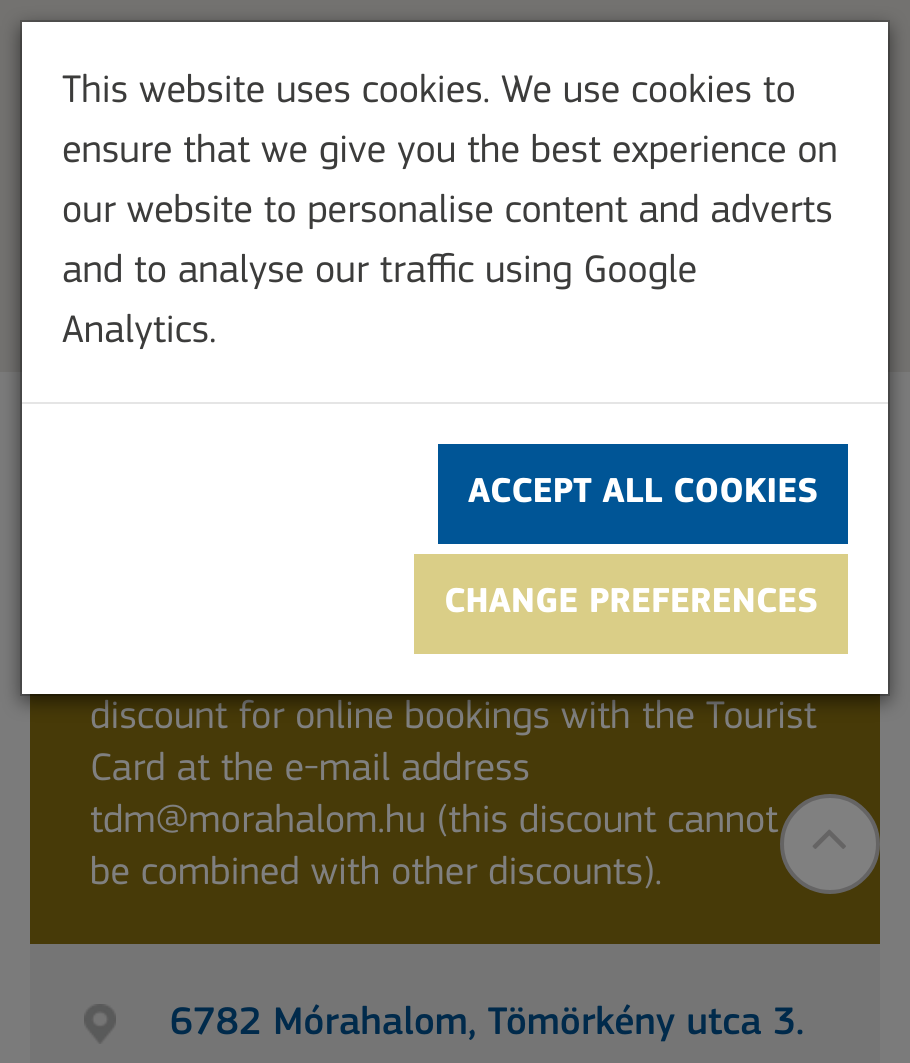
<svg xmlns="http://www.w3.org/2000/svg" width="910" height="1063" viewBox="0 0 910 1063">
  <rect width="100%" height="100%" fill="#7b7b7b"/>
  <rect x="0" y="0" width="910" height="372" fill="#737270"/>
  <rect x="30" y="694" width="850" height="250" fill="#473a08"/>
  <image x="91" y="699" width="538" height="37" href="images/1.png"/>
  <image x="642" y="699" width="175" height="30" href="images/2.png"/>
  <image x="92" y="751" width="437" height="30" href="images/3.png"/>
  <image x="90" y="803" width="689" height="34" href="images/4.png"/>
  <image x="92" y="855" width="569" height="34" href="images/5.png"/>
  <rect x="30" y="944" width="850" height="119" fill="#757575"/>
  <image x="84" y="1004" width="32" height="40" href="images/6.png"/>
  <image x="171" y="1004" width="632" height="38" href="images/7.png"/>
  <rect x="20" y="26" width="870" height="676" fill="#00000080" filter="blur(9px)"/>
  <rect x="22" y="22" width="866" height="672" fill="#fff"/>
  <rect x="21" y="21" width="868" height="674" fill="none" stroke="#00000033" stroke-width="2"/>
  <image x="62" y="73" width="732" height="30" href="images/8.png"/>
  <image x="63" y="133" width="773" height="37" href="images/9.png"/>
  <image x="63" y="193" width="769" height="37" href="images/10.png"/>
  <image x="63" y="252" width="633" height="38" href="images/11.png"/>
  <image x="62" y="313" width="153" height="37" href="images/12.png"/>
  <rect x="22" y="402" width="866" height="2" fill="#e5e5e5"/>
  <rect x="438" y="444" width="410" height="100" fill="#005596"/>
  <image x="468" y="477" width="349" height="26" href="images/13.png"/>
  <rect x="414" y="554" width="434" height="100" fill="#dace87"/>
  <image x="446" y="587" width="371" height="26" href="images/14.png"/>
  <circle cx="830" cy="844" r="48" fill="#808080" stroke="#656464" stroke-width="4"/>
  <image x="812" y="829" width="34" height="20" href="images/15.png"/>
</svg>
